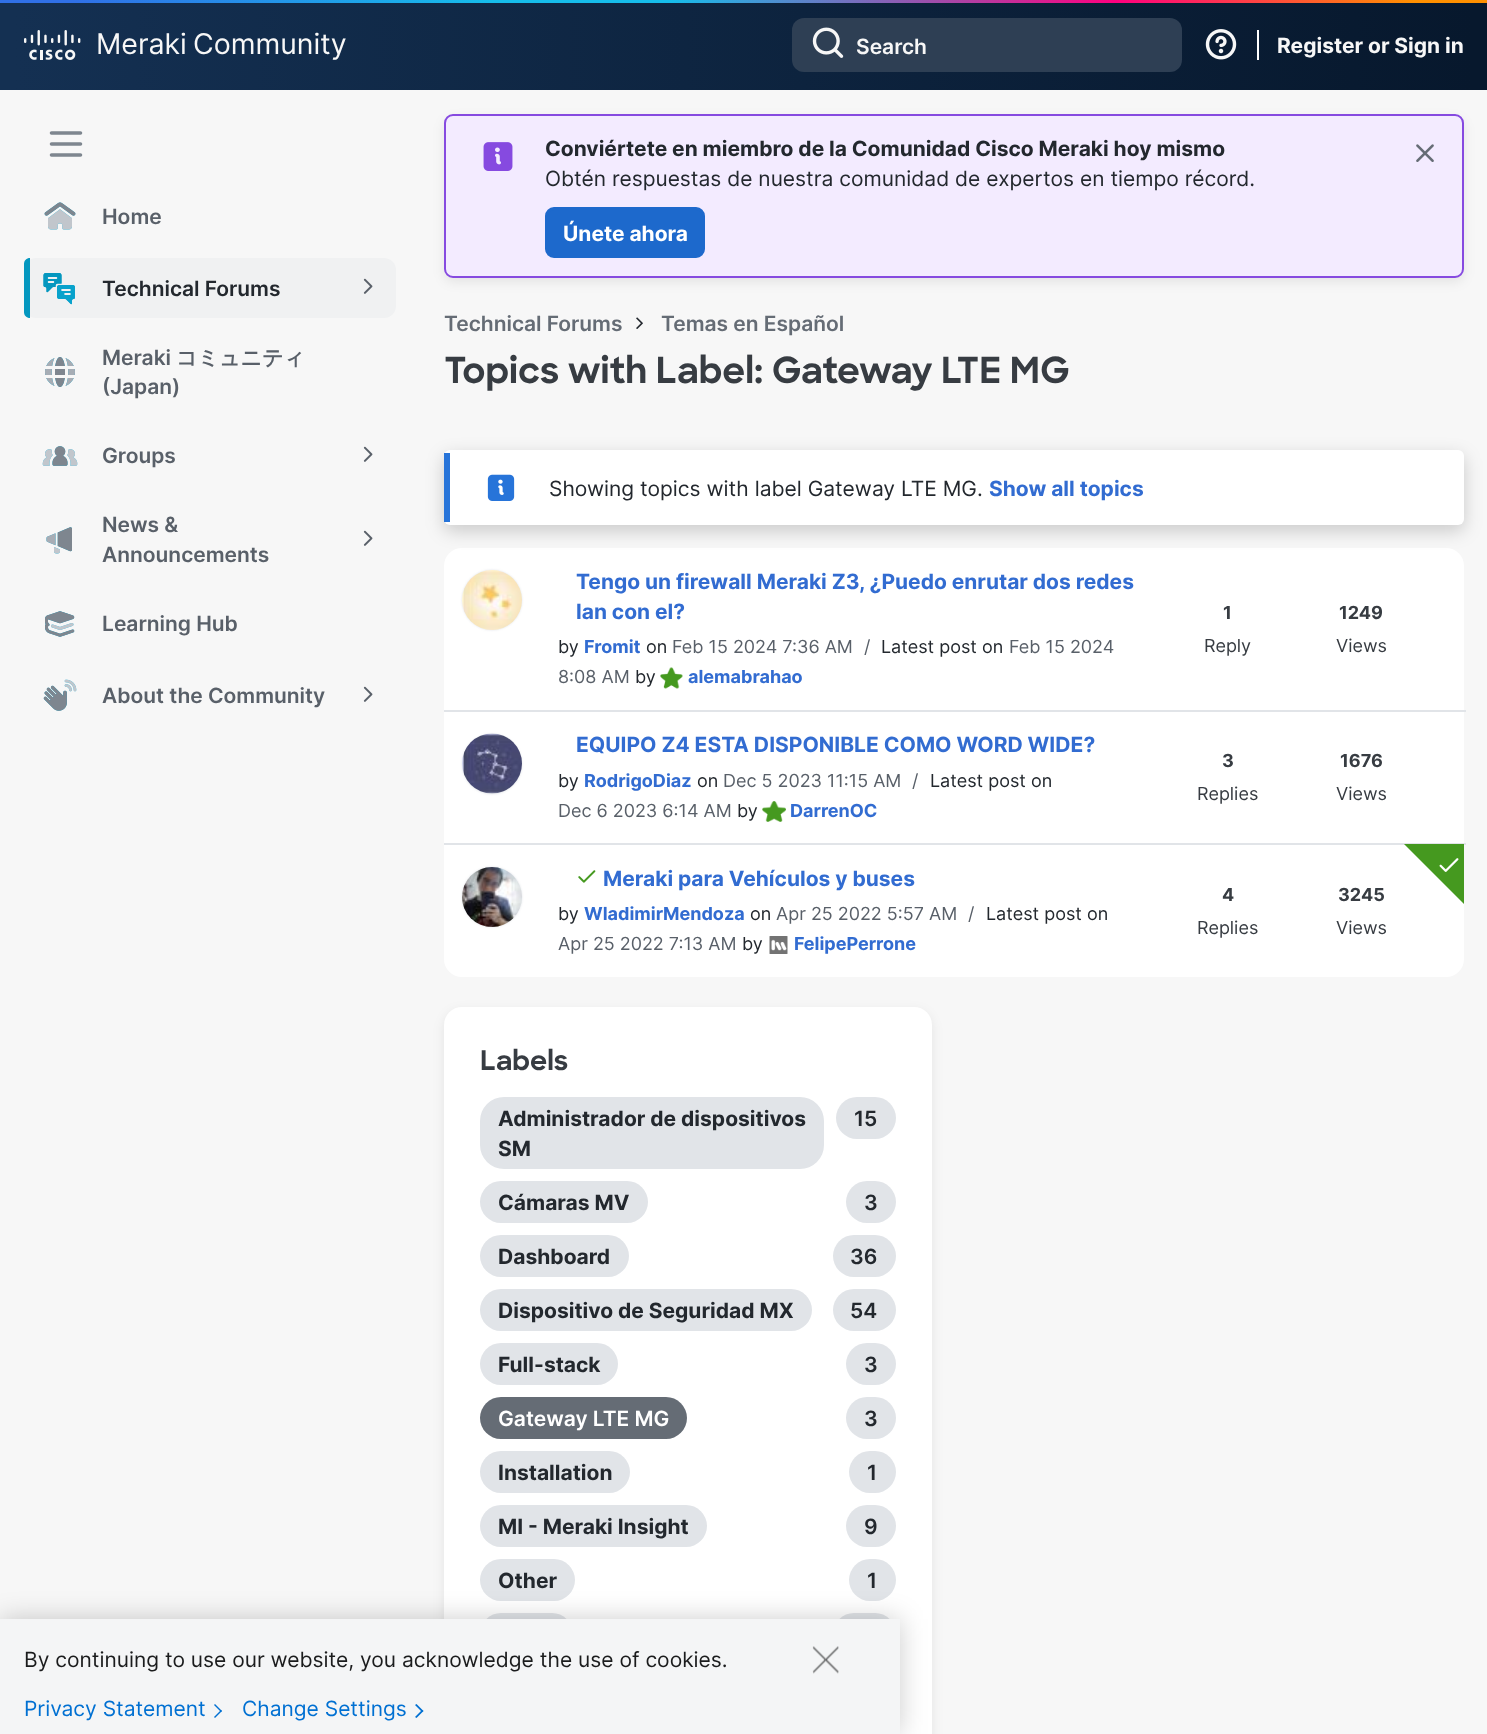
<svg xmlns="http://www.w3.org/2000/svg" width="1487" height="1734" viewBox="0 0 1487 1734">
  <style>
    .t1 { font: 28.5px Inter; fill: #f7f7f7; }
    .t2 { font: 600 21px Inter; fill: #f7f7f7; }
    .t3 { font: bold 21px Inter; fill: #f7f7f7; }
    .t4 { font: 600 21px Inter; fill: #596069; }
    .t5 { font: 600 21px Inter; fill: #23282e; }
    .t6 { font: bold 21px WenQuanYi Zen Hei; fill: #596069; }
    .t7 { font: bold 21px Inter; fill: #23282e; }
    .t8 { font: 21px Inter; fill: #23282e; }
    .t9 { font: bold 21px Inter; fill: #fff; }
    .t10 { font: 600 21px Inter; fill: #656c75; }
    .t11 { font: bold 36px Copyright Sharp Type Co; fill: #373c42; }
    .t12 { font: bold 21px Inter; fill: #326cd1; }
    .t13 { font: 18px Inter; fill: #23282e; }
    .t14 { font: bold 18px Inter; fill: #326cd1; }
    .t15 { font: 18px Inter; fill: #596069; }
    .t16 { font: bold 18px Inter; fill: #373c42; }
    .t17 { font: 18px Inter; fill: #373c42; }
    .t18 { font: bold 27px Copyright Sharp Type Co; fill: #373c42; }
    .t19 { font: 600 21px Inter; fill: #fff; }
    .t20 { font: 21px Inter; fill: #1b1c1d; }
    .t21 { font: 21px Inter; fill: #0070d2; }
  </style>
  <defs>
    <linearGradient id="g1" gradientUnits="userSpaceOnUse" x1="0" y1="45" x2="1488" y2="45"><stop offset="0.01" stop-color="#143052"/><stop offset="0.99" stop-color="#07182d"/></linearGradient>
    <linearGradient id="g2" gradientUnits="userSpaceOnUse" x1="0" y1="1.5" x2="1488" y2="1.5"><stop offset="0.05" stop-color="#3070e7"/><stop offset="0.33" stop-color="#16bdeb"/><stop offset="0.45" stop-color="#16bdeb"/><stop offset="0.75" stop-color="#ff007f"/><stop offset="0.95" stop-color="#ff9000"/></linearGradient>
  </defs>
  <rect width="100%" height="100%" fill="#f7f7f7"/>
  <rect x="0" y="3" width="1487" height="87" fill="url(#g1)"/>
  <rect x="0" y="0" width="1487" height="3" fill="url(#g2)"/>
  <image x="24" y="30" width="57" height="30" href="images/1.png"/>
  <text x="96" y="54" class="t1">Meraki</text>
  <text x="193" y="54" class="t1">Community</text>
  <rect x="792" y="18" width="390" height="54" rx="12" fill="#2e3f54"/>
  <image x="812" y="27" width="32" height="31" href="images/2.png"/>
  <text x="856" y="54" class="t2">Search</text>
  <image x="1205" y="29" width="32" height="31" href="images/3.png"/>
  <rect x="1257" y="30" width="2" height="30" fill="#fff"/>
  <text x="1277" y="53" class="t3">Register or Sign in</text>
  <path d="M51.5 133H80.5M51.5 144H80.5M51.5 155H80.5" fill="none" stroke="#7e868f" stroke-width="3.6" stroke-linecap="round"/>
  <image x="44" y="202" width="32" height="28" href="images/4.png"/>
  <image x="44" y="202" width="32" height="28" href="images/5.png"/>
  <text x="102" y="224" class="t4">Home</text>
  <rect x="24" y="258" width="372" height="60" rx="12" fill="#f0f1f2"/>
  <path d="M30 258V318C26.5 318 24 315.5 24 312V264C24 260.5 26.5 258 30 258Z" fill="#0497bf"/>
  <image x="43" y="273" width="32" height="32" href="images/6.png"/>
  <image x="43" y="273" width="32" height="32" href="images/7.png"/>
  <text x="102" y="296" class="t5">Technical Forums</text>
  <image x="363" y="278" width="10" height="16" href="images/8.png"/>
  <image x="45" y="357" width="30" height="30" href="images/9.png"/>
  <image x="45" y="357" width="30" height="30" href="images/10.png"/>
  <text x="102" y="365" class="t4">Meraki</text>
  <text x="176" y="365" class="t6">コミュニティ</text>
  <text x="102" y="394" class="t4">(Japan)</text>
  <image x="42" y="446" width="36" height="20" href="images/11.png"/>
  <image x="42" y="446" width="36" height="20" href="images/12.png"/>
  <text x="102" y="463" class="t4">Groups</text>
  <image x="363" y="446" width="10" height="16" href="images/13.png"/>
  <image x="46" y="527" width="26" height="27" href="images/14.png"/>
  <image x="46" y="527" width="26" height="27" href="images/15.png"/>
  <text x="102" y="532" class="t4">News &amp;</text>
  <text x="102" y="562" class="t4">Announcements</text>
  <image x="363" y="530" width="10" height="16" href="images/13.png"/>
  <image x="45" y="611" width="30" height="26" href="images/16.png"/>
  <image x="45" y="611" width="30" height="26" href="images/17.png"/>
  <text x="102" y="631" class="t4">Learning Hub</text>
  <image x="43" y="679" width="34" height="32" href="images/18.png"/>
  <image x="43" y="679" width="34" height="32" href="images/19.png"/>
  <text x="102" y="703" class="t4">About the Community</text>
  <image x="363" y="686" width="10" height="16" href="images/13.png"/>
  <rect x="444" y="119" width="1020" height="163" rx="9" fill="#00000014" filter="blur(6px)"/>
  <rect x="445" y="115" width="1018" height="162" rx="8" fill="#f3ebff" stroke="#864ae0" stroke-width="2"/>
  <image x="483" y="142" width="30" height="29" href="images/20.png"/>
  <text x="545" y="156" class="t7">Conviértete en miembro de la Comunidad Cisco Meraki hoy mismo</text>
  <text x="545" y="186" class="t8">Obtén respuestas de nuestra comunidad de expertos en tiempo récord.</text>
  <rect x="546.5" y="208.5" width="157" height="48" rx="7.5" fill="#1d69cc" stroke="#1d69cc" stroke-width="3"/>
  <text x="563" y="241" class="t9">Únete ahora</text>
  <image x="1416" y="144" width="18" height="18" href="images/21.png"/>
  <text x="444" y="331" class="t10">Technical Forums</text>
  <image x="636" y="317" width="7" height="12" href="images/22.png"/>
  <text x="661" y="331" class="t10">Temas en Español</text>
  <text x="444" y="383" class="t11">Topics with Label: Gateway LTE MG</text>
  <rect x="444" y="548" width="1020" height="429" rx="18" fill="#fff"/>
  <rect x="444" y="456" width="1020" height="75" rx="6" fill="#0000002e" filter="blur(9px)"/>
  <rect x="444" y="450" width="1020" height="75" rx="6" fill="#fff"/>
  <rect x="444" y="453" width="6" height="69" fill="#2774d9"/>
  <image x="487" y="474" width="28" height="27" href="images/23.png"/>
  <text x="549" y="496" class="t8">Showing topics with label Gateway LTE MG.</text>
  <text x="989" y="496" class="t12">Show all topics</text>
  <rect x="462" y="570" width="60" height="60" rx="30" fill="#e1e4e8" filter="blur(1px)"/>
  <image x="462" y="570" width="60" height="60" href="images/24.png"/>
  <text x="576" y="589" class="t12">Tengo un firewall Meraki Z3, ¿Puedo enrutar dos redes</text>
  <text x="576" y="619" class="t12">lan con el?</text>
  <text x="558" y="653" class="t13">by</text>
  <text x="584" y="653" class="t14">Fromit</text>
  <text x="646" y="653" class="t13">on</text>
  <text x="672" y="653" class="t15">Feb 15 2024 7:36 AM</text>
  <text x="864" y="653" class="t15">/</text>
  <text x="881" y="653" class="t13">Latest post on</text>
  <text x="1009" y="653" class="t15">Feb 15 2024</text>
  <text x="558" y="683" class="t15">8:08 AM</text>
  <text x="635" y="683" class="t13">by</text>
  <image x="660" y="667" width="23" height="22" href="images/25.png"/>
  <text x="688" y="683" class="t14">alemabrahao</text>
  <text x="1223" y="619" class="t16">1</text>
  <text x="1204" y="652" class="t17">Reply</text>
  <text x="1339" y="619" class="t16">1249</text>
  <text x="1336" y="652" class="t17">Views</text>
  <rect x="444" y="710" width="1022" height="2" fill="#e1e4e8"/>
  <rect x="462" y="734" width="60" height="60" rx="30" fill="#e1e4e8" filter="blur(1px)"/>
  <image x="462" y="733" width="60" height="61" href="images/26.png"/>
  <text x="576" y="752" class="t12">EQUIPO Z4 ESTA DISPONIBLE COMO WORD WIDE?</text>
  <text x="558" y="787" class="t13">by</text>
  <text x="584" y="787" class="t14">RodrigoDiaz</text>
  <text x="697" y="787" class="t13">on</text>
  <text x="723" y="787" class="t15">Dec 5 2023 11:15 AM</text>
  <text x="912" y="787" class="t15">/</text>
  <text x="930" y="787" class="t13">Latest post on</text>
  <text x="558" y="817" class="t15">Dec 6 2023 6:14 AM</text>
  <text x="737" y="817" class="t13">by</text>
  <image x="762" y="801" width="24" height="21" href="images/27.png"/>
  <text x="790" y="817" class="t14">DarrenOC</text>
  <text x="1222" y="767" class="t16">3</text>
  <text x="1197" y="800" class="t17">Replies</text>
  <text x="1340" y="767" class="t16">1676</text>
  <text x="1336" y="800" class="t17">Views</text>
  <rect x="444" y="843" width="1022" height="2" fill="#e1e4e8"/>
  <path d="M1404 844H1464V904Z" fill="#45991f"/>
  <image x="1439" y="858" width="20" height="14" href="images/28.png"/>
  <rect x="462" y="867" width="60" height="60" rx="30" fill="#e1e4e8" filter="blur(1px)"/>
  <image x="462" y="867" width="60" height="60" href="images/29.png"/>
  <image x="578" y="870" width="18" height="13" href="images/30.png"/>
  <text x="603" y="886" class="t12">Meraki para Vehículos y buses</text>
  <text x="558" y="920" class="t13">by</text>
  <text x="584" y="920" class="t14">WladimirMendoza</text>
  <text x="750" y="920" class="t13">on</text>
  <text x="776" y="920" class="t15">Apr 25 2022 5:57 AM</text>
  <text x="968" y="920" class="t15">/</text>
  <text x="986" y="920" class="t13">Latest post on</text>
  <text x="558" y="950" class="t15">Apr 25 2022 7:13 AM</text>
  <text x="742" y="950" class="t13">by</text>
  <image x="769" y="936" width="19" height="18" href="images/31.png"/>
  <text x="794" y="950" class="t14">FelipePerrone</text>
  <text x="1222" y="901" class="t16">4</text>
  <text x="1197" y="934" class="t17">Replies</text>
  <text x="1338" y="901" class="t16">3245</text>
  <text x="1336" y="934" class="t17">Views</text>
  <rect x="444" y="1011" width="488" height="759" rx="18" fill="#00000014" filter="blur(6px)"/>
  <rect x="444" y="1007" width="488" height="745" rx="18" fill="#fff"/>
  <text x="480" y="1070" class="t18">Labels</text>
  <rect x="480" y="1097" width="344" height="72" rx="24" fill="#e1e4e8"/>
  <text x="498" y="1126" class="t7">Administrador de dispositivos</text>
  <text x="498" y="1156" class="t7">SM</text>
  <rect x="836" y="1097" width="60" height="42" rx="21" fill="#e1e4e8"/>
  <text x="854" y="1126" class="t5">15</text>
  <rect x="480" y="1181" width="168" height="42" rx="21" fill="#e1e4e8"/>
  <text x="498" y="1210" class="t7">Cámaras MV</text>
  <rect x="846" y="1181" width="50" height="42" rx="21" fill="#e1e4e8"/>
  <text x="864" y="1210" class="t5">3</text>
  <rect x="480" y="1235" width="149" height="42" rx="21" fill="#e1e4e8"/>
  <text x="498" y="1264" class="t7">Dashboard</text>
  <rect x="833" y="1235" width="63" height="42" rx="21" fill="#e1e4e8"/>
  <text x="850" y="1264" class="t5">36</text>
  <rect x="480" y="1289" width="332" height="42" rx="21" fill="#e1e4e8"/>
  <text x="498" y="1318" class="t7">Dispositivo de Seguridad MX</text>
  <rect x="833" y="1289" width="63" height="42" rx="21" fill="#e1e4e8"/>
  <text x="850" y="1318" class="t5">54</text>
  <rect x="480" y="1343" width="138" height="42" rx="21" fill="#e1e4e8"/>
  <text x="498" y="1372" class="t7">Full-stack</text>
  <rect x="846" y="1343" width="50" height="42" rx="21" fill="#e1e4e8"/>
  <text x="864" y="1372" class="t5">3</text>
  <rect x="480" y="1397" width="207" height="42" rx="21" fill="#656c75"/>
  <text x="498" y="1426" class="t19">Gateway LTE MG</text>
  <rect x="846" y="1397" width="50" height="42" rx="21" fill="#e1e4e8"/>
  <text x="864" y="1426" class="t5">3</text>
  <rect x="480" y="1451" width="150" height="42" rx="21" fill="#e1e4e8"/>
  <text x="498" y="1480" class="t7">Installation</text>
  <rect x="849" y="1451" width="47" height="42" rx="21" fill="#e1e4e8"/>
  <text x="867" y="1480" class="t5">1</text>
  <rect x="480" y="1505" width="227" height="42" rx="21" fill="#e1e4e8"/>
  <text x="498" y="1534" class="t7">MI - Meraki Insight</text>
  <rect x="846" y="1505" width="50" height="42" rx="21" fill="#e1e4e8"/>
  <text x="864" y="1534" class="t5">9</text>
  <rect x="480" y="1559" width="95" height="42" rx="21" fill="#e1e4e8"/>
  <text x="498" y="1588" class="t7">Other</text>
  <rect x="849" y="1559" width="47" height="42" rx="21" fill="#e1e4e8"/>
  <text x="867" y="1588" class="t5">1</text>
  <rect x="480" y="1613" width="93" height="42" rx="21" fill="#e1e4e8"/>
  <rect x="833" y="1613" width="63" height="42" rx="21" fill="#e1e4e8"/>
  <rect x="0" y="1619" width="900" height="115" fill="#00000033" filter="blur(13.5px)"/>
  <rect x="0" y="1619" width="900" height="115" fill="#f4f5f6"/>
  <text x="24" y="1667" class="t20">By continuing to use our website, you acknowledge the use of cookies.</text>
  <text x="24" y="1716" class="t21">Privacy Statement</text>
  <path d="M215 1704L222 1711L221 1712L214 1705Z" fill="#0070d2"/>
  <path d="M221 1710L222 1711L215 1718L214 1717Z" fill="#0070d2"/>
  <text x="242" y="1716" class="t21">Change Settings</text>
  <path d="M416.5 1704L423.5 1711L422 1712L415 1705Z" fill="#0070d2"/>
  <path d="M422 1710L423.5 1711L416.5 1718L415 1717Z" fill="#0070d2"/>
  <image x="812" y="1646" width="27" height="28" href="images/32.png"/>
</svg>
